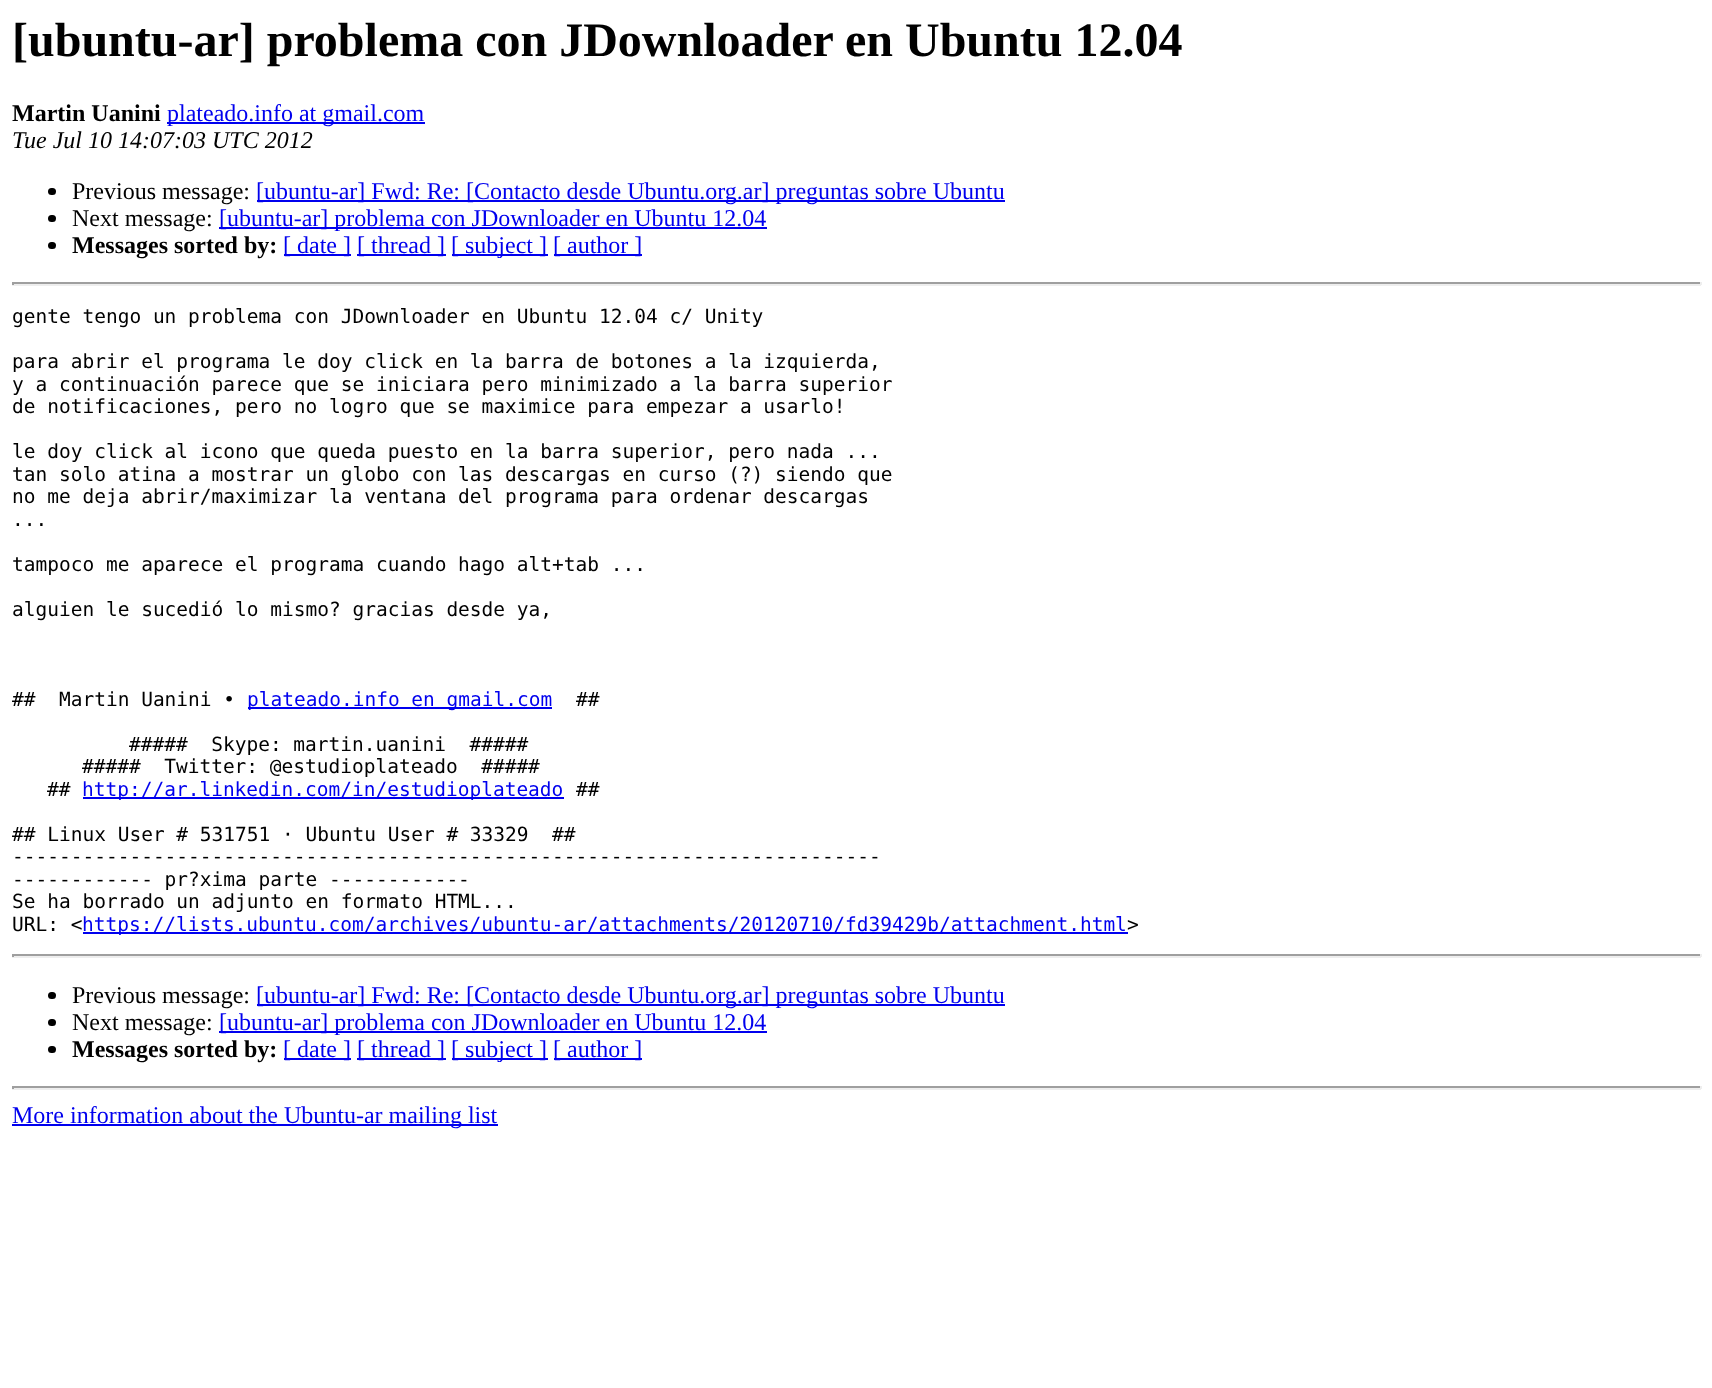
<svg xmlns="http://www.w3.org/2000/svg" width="1712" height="1388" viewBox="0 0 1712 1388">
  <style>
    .t1 { font: bold 48px Liberation Serif; fill: #000; }
    .t2 { font: bold 24px Liberation Serif; fill: #000; }
    .t3 { font: 24px Liberation Serif; fill: #00e; }
    .t4 { font: italic 24px Liberation Serif; fill: #000; }
    .t5 { font: 24px Liberation Serif; fill: #000; }
    .t6 { font: 19.5px DejaVu Sans Mono; fill: #000; }
    .t7 { font: 19.5px DejaVu Sans Mono; fill: #00e; }
  </style>
  <rect width="100%" height="100%" fill="#fff"/>
  <text x="12" y="56" class="t1">[ubuntu-ar] problema con JDownloader en Ubuntu 12.04</text>
  <text x="12" y="121" class="t2">Martin Uanini</text>
  <rect x="167" y="122" width="258" height="2" fill="#00e"/>
  <text x="167" y="121" class="t3">plateado.info at gmail.com</text>
  <text x="12" y="148" class="t4">Tue Jul 10 14:07:03 UTC 2012</text>
  <rect x="48" y="188" width="8" height="7" rx="3.5" fill="#000"/>
  <text x="72" y="199" class="t5">Previous message:</text>
  <rect x="257" y="200" width="748" height="2" fill="#00e"/>
  <text x="256" y="199" class="t3">[ubuntu-ar] Fwd: Re: [Contacto desde Ubuntu.org.ar] preguntas sobre Ubuntu</text>
  <rect x="48" y="215" width="8" height="7" rx="3.5" fill="#000"/>
  <text x="72" y="226" class="t5">Next message:</text>
  <rect x="219" y="227" width="548" height="2" fill="#00e"/>
  <text x="219" y="226" class="t3">[ubuntu-ar] problema con JDownloader en Ubuntu 12.04</text>
  <rect x="48" y="242" width="8" height="7" rx="3.5" fill="#000"/>
  <text x="72" y="253" class="t2">Messages sorted by:</text>
  <rect x="284" y="254" width="67" height="2" fill="#00e"/>
  <text x="283" y="253" class="t3">[ date ]</text>
  <rect x="357" y="254" width="89" height="2" fill="#00e"/>
  <text x="357" y="253" class="t3">[ thread ]</text>
  <rect x="452" y="254" width="96" height="2" fill="#00e"/>
  <text x="451" y="253" class="t3">[ subject ]</text>
  <rect x="554" y="254" width="88" height="2" fill="#00e"/>
  <text x="553" y="253" class="t3">[ author ]</text>
  <rect x="12" y="282" width="1689" height="2" fill="#9f9f9f"/>
  <rect x="1700" y="282" width="2" height="3" fill="#eee"/>
  <rect x="12" y="284" width="1689" height="2" fill="#eee"/>
  <rect x="12" y="282" width="2" height="3" fill="#9f9f9f"/>
  <text x="12" y="323" class="t6">gente tengo un problema con JDownloader en Ubuntu 12.04 c/ Unity</text>
  <text x="12" y="368" class="t6">para abrir el programa le doy click en la barra de botones a la izquierda,</text>
  <text x="12" y="391" class="t6">y a continuación parece que se iniciara pero minimizado a la barra superior</text>
  <text x="12" y="413" class="t6">de notificaciones, pero no logro que se maximice para empezar a usarlo!</text>
  <text x="12" y="458" class="t6">le doy click al icono que queda puesto en la barra superior, pero nada ...</text>
  <text x="12" y="481" class="t6">tan solo atina a mostrar un globo con las descargas en curso (?) siendo que</text>
  <text x="12" y="503" class="t6">no me deja abrir/maximizar la ventana del programa para ordenar descargas</text>
  <text x="12" y="526" class="t6">...</text>
  <text x="12" y="571" class="t6">tampoco me aparece el programa cuando hago alt+tab ...</text>
  <text x="12" y="616" class="t6">alguien le sucedió lo mismo? gracias desde ya,</text>
  <text x="12" y="706" class="t6" xml:space="preserve">##  Martin Uanini •</text>
  <rect x="248" y="707" width="304" height="2" fill="#00e"/>
  <text x="247" y="706" class="t7">plateado.info en gmail.com</text>
  <text x="576" y="706" class="t6">##</text>
  <text x="129" y="751" class="t6" xml:space="preserve">#####  Skype: martin.uanini  #####</text>
  <text x="82" y="773" class="t6" xml:space="preserve">#####  Twitter: @estudioplateado  #####</text>
  <text x="47" y="796" class="t6">##</text>
  <rect x="83" y="797" width="481" height="2" fill="#00e"/>
  <text x="82" y="796" class="t7">http://ar.linkedin.com/in/estudioplateado</text>
  <text x="576" y="796" class="t6">##</text>
  <text x="12" y="841" class="t6" xml:space="preserve">## Linux User # 531751 · Ubuntu User # 33329  ##</text>
  <text x="12" y="863" class="t6">--------------------------------------------------------------------------</text>
  <text x="12" y="886" class="t6">------------ pr?xima parte ------------</text>
  <text x="12" y="908" class="t6">Se ha borrado un adjunto en formato HTML...</text>
  <text x="12" y="931" class="t6">URL: &lt;</text>
  <rect x="83" y="932" width="1045" height="2" fill="#00e"/>
  <text x="82" y="931" class="t7">https://lists.ubuntu.com/archives/ubuntu-ar/attachments/20120710/fd39429b/attachment.html</text>
  <text x="1127" y="931" class="t6">&gt;</text>
  <rect x="12" y="954" width="1689" height="2" fill="#9f9f9f"/>
  <rect x="1700" y="954" width="2" height="3" fill="#eee"/>
  <rect x="12" y="956" width="1689" height="2" fill="#eee"/>
  <rect x="12" y="954" width="2" height="3" fill="#9f9f9f"/>
  <rect x="48" y="992" width="8" height="7" rx="3.5" fill="#000"/>
  <text x="72" y="1003" class="t5">Previous message:</text>
  <rect x="257" y="1004" width="748" height="2" fill="#00e"/>
  <text x="256" y="1003" class="t3">[ubuntu-ar] Fwd: Re: [Contacto desde Ubuntu.org.ar] preguntas sobre Ubuntu</text>
  <rect x="48" y="1019" width="8" height="7" rx="3.5" fill="#000"/>
  <text x="72" y="1030" class="t5">Next message:</text>
  <rect x="219" y="1031" width="548" height="2" fill="#00e"/>
  <text x="219" y="1030" class="t3">[ubuntu-ar] problema con JDownloader en Ubuntu 12.04</text>
  <rect x="48" y="1046" width="8" height="7" rx="3.5" fill="#000"/>
  <text x="72" y="1057" class="t2">Messages sorted by:</text>
  <rect x="284" y="1058" width="67" height="2" fill="#00e"/>
  <text x="283" y="1057" class="t3">[ date ]</text>
  <rect x="357" y="1058" width="89" height="2" fill="#00e"/>
  <text x="357" y="1057" class="t3">[ thread ]</text>
  <rect x="452" y="1058" width="96" height="2" fill="#00e"/>
  <text x="451" y="1057" class="t3">[ subject ]</text>
  <rect x="554" y="1058" width="88" height="2" fill="#00e"/>
  <text x="553" y="1057" class="t3">[ author ]</text>
  <rect x="12" y="1086" width="1689" height="2" fill="#9f9f9f"/>
  <rect x="1700" y="1086" width="2" height="3" fill="#eee"/>
  <rect x="12" y="1088" width="1689" height="2" fill="#eee"/>
  <rect x="12" y="1086" width="2" height="3" fill="#9f9f9f"/>
  <rect x="12" y="1124" width="486" height="2" fill="#00e"/>
  <text x="12" y="1123" class="t3">More information about the Ubuntu-ar mailing list</text>
</svg>
